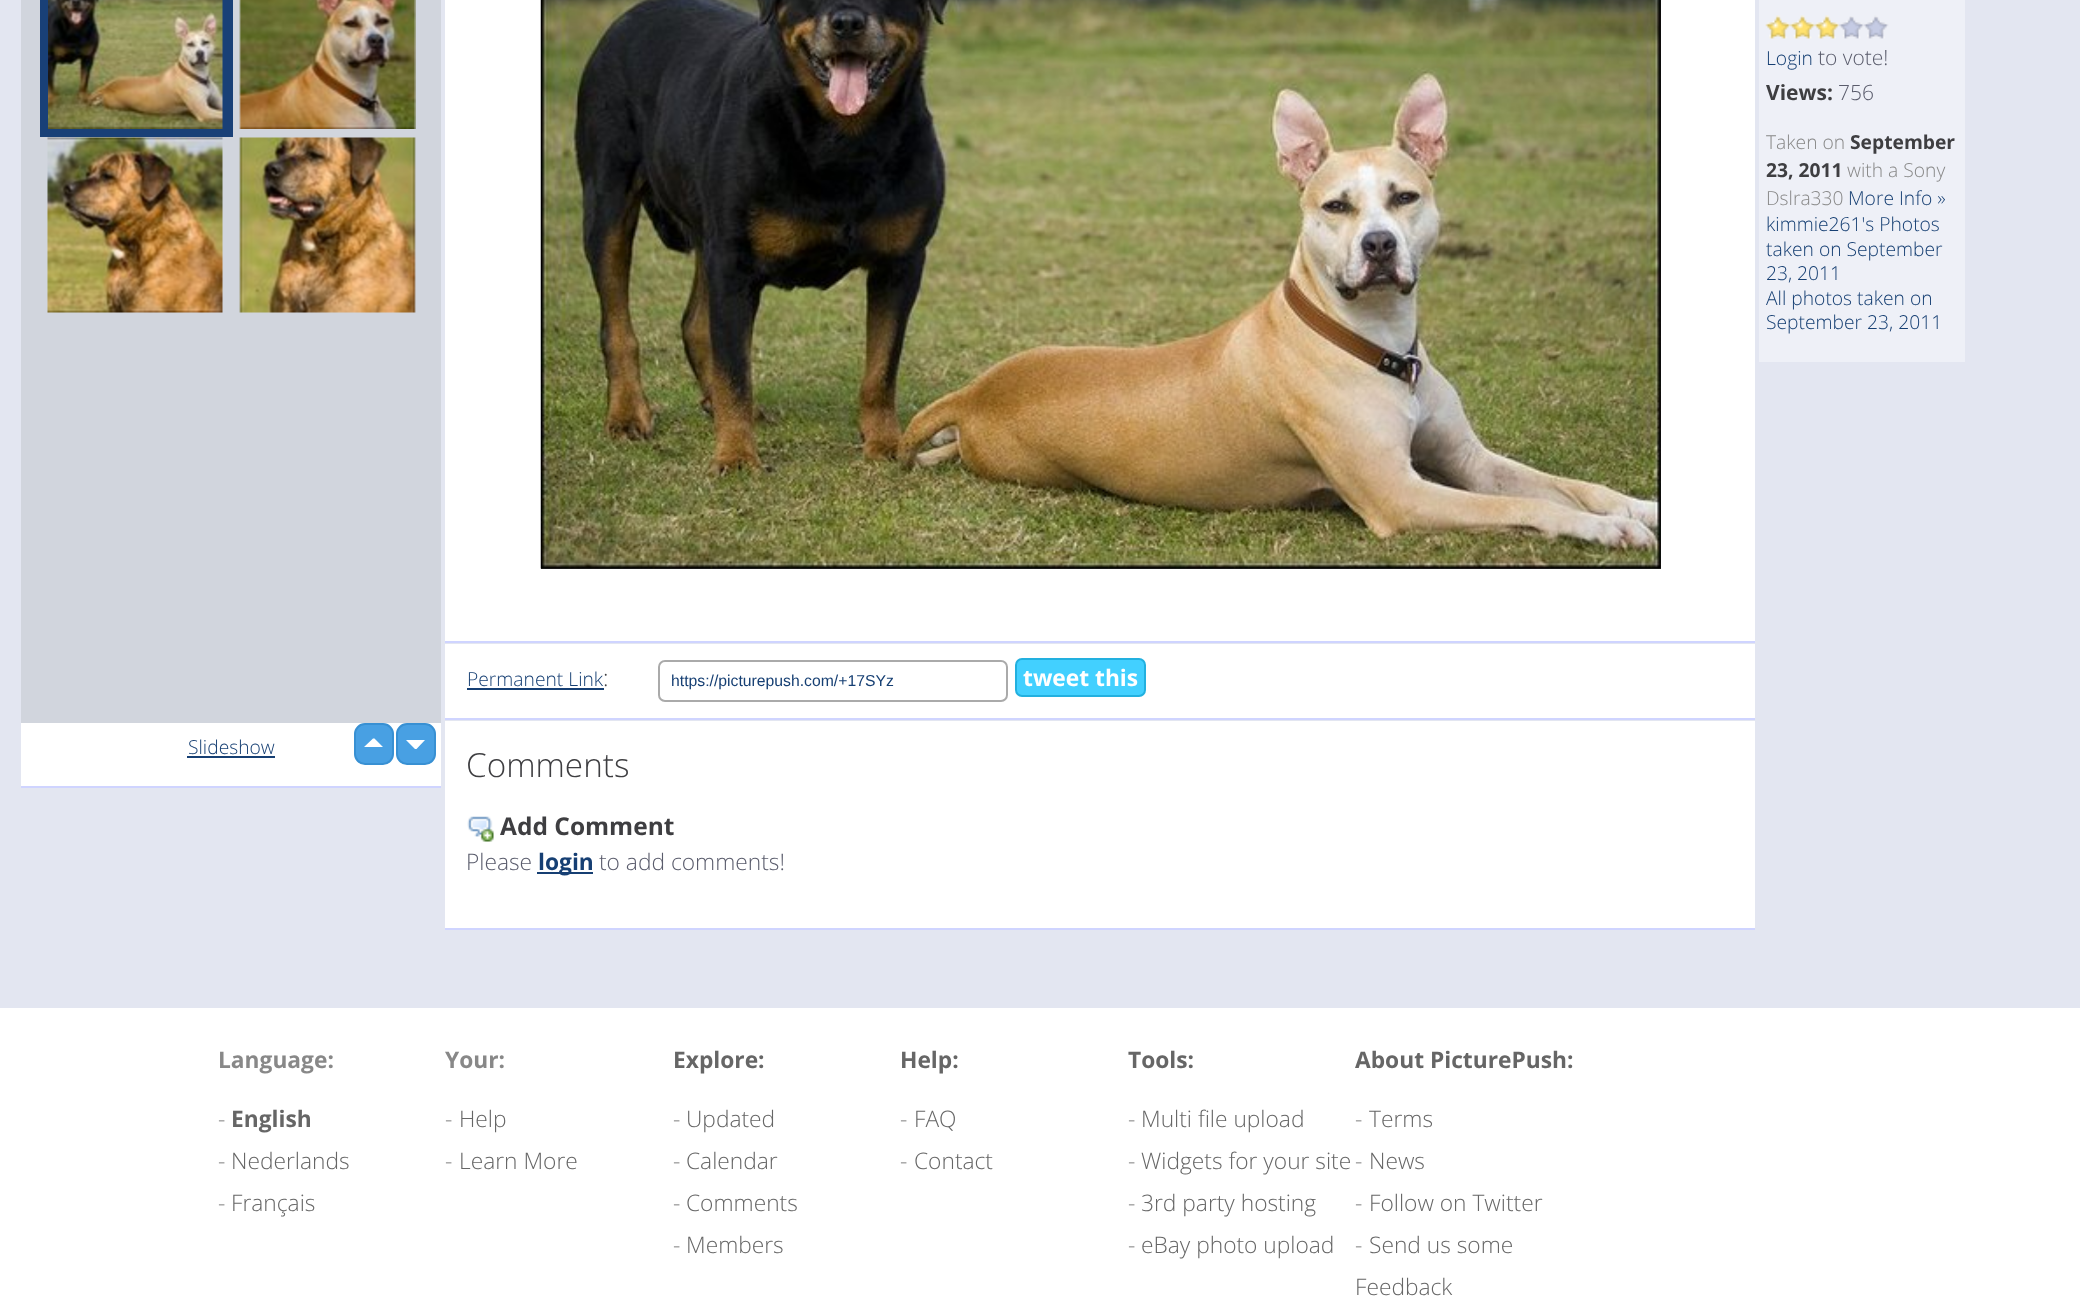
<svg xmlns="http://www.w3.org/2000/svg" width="2080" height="1306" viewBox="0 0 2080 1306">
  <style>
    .t1 { font: 300 19.25px Open Sans; fill: #163f73; }
    .t2 { font: 300 21px Open Sans; fill: #5a5c6c; }
    .t3 { font: bold 21px Open Sans; fill: #3e3e41; }
    .t4 { font: 300 19.25px Open Sans; fill: #888; }
    .t5 { font: bold 19.25px Open Sans; fill: #3e3e41; }
    .t6 { font: 300 22.75px Open Sans; fill: #3e3e41; }
    .t7 { font: 15.75px Liberation Sans; fill: #163f73; }
    .t8 { font: bold 22.75px Open Sans; fill: #fff; }
    .t9 { font: 300 33.25px Open Sans; fill: #3e3e41; }
    .t10 { font: bold 24.5px Open Sans; fill: #3e3e41; }
    .t11 { font: 300 22.75px Open Sans; fill: #5a5c6c; }
    .t12 { font: bold 22.75px Open Sans; fill: #163f73; }
    .t13 { font: bold 22.75px Open Sans; fill: #888; }
    .t14 { font: 300 22.75px Open Sans; fill: #888; }
    .t15 { font: bold 22.75px Open Sans; fill: #666; }
    .t16 { font: 300 22.75px Open Sans; fill: #666; }
  </style>
  <rect width="100%" height="100%" fill="#e3e6f1"/>
  <rect x="21" y="0" width="420" height="723" fill="#d1d5dd"/>
  <rect x="21" y="786" width="420" height="2" fill="#cfd4ff"/>
  <rect x="40" y="0" width="193" height="137" fill="#194077"/>
  <image x="48" y="0" width="175" height="129" href="images/1.png"/>
  <image x="239" y="0" width="177" height="129" href="images/2.png"/>
  <image x="47" y="137" width="176" height="176" href="images/3.png"/>
  <image x="239" y="137" width="177" height="176" href="images/4.png"/>
  <rect x="21" y="723" width="420" height="63" fill="#fff"/>
  <rect x="355" y="724" width="38" height="40" rx="10" fill="#48a0e3" stroke="#3890d3" stroke-width="2"/>
  <rect x="397" y="724" width="38" height="40" rx="10" fill="#48a0e3" stroke="#3890d3" stroke-width="2"/>
  <path d="M383 747H364L373 738.5H374.5ZM406 740H425L416.5 749H415Z" fill="#fff"/>
  <text x="188" y="754" class="t1">Slideshow</text>
  <rect x="187" y="756" width="88" height="2" fill="#163f73"/>
  <rect x="445" y="0" width="1310" height="641" fill="#fff"/>
  <rect x="445" y="641" width="1310" height="2" fill="#cfd4ff"/>
  <rect x="541" y="0" width="1120" height="569" fill="#333"/>
  <image x="540" y="0" width="1121" height="569" href="images/5.png"/>
  <rect x="1759" y="0" width="206" height="362" fill="#eef0f7"/>
  <image x="1765" y="15" width="26" height="24" href="images/6.png"/>
  <image x="1790" y="15" width="25" height="24" href="images/7.png"/>
  <image x="1814" y="15" width="26" height="24" href="images/8.png"/>
  <image x="1839" y="16" width="25" height="23" href="images/9.png"/>
  <image x="1864" y="15" width="25" height="24" href="images/10.png"/>
  <text x="1766" y="65" class="t1">Login</text>
  <text x="1818" y="65" class="t2">to vote!</text>
  <text x="1766" y="100" class="t3">Views:</text>
  <text x="1838" y="100" class="t2">756</text>
  <text x="1766" y="149" class="t4">Taken on</text>
  <text x="1850" y="149" class="t5">September</text>
  <text x="1766" y="177" class="t5">23, 2011</text>
  <text x="1847" y="177" class="t4">with a Sony</text>
  <text x="1766" y="205" class="t4">Dslra330</text>
  <text x="1848" y="205" class="t1">More Info »</text>
  <text x="1766" y="231" class="t1">kimmie261's Photos</text>
  <text x="1766" y="256" class="t1">taken on September</text>
  <text x="1766" y="280" class="t1">23, 2011</text>
  <text x="1766" y="305" class="t1">All photos taken on</text>
  <text x="1766" y="329" class="t1">September 23, 2011</text>
  <rect x="445" y="644" width="1310" height="74" fill="#fff"/>
  <rect x="445" y="718" width="1310" height="2" fill="#cfd4ff"/>
  <text x="467" y="686" class="t1">Permanent Link</text>
  <rect x="467" y="688" width="137" height="2" fill="#163f73"/>
  <text x="603" y="686" class="t6">:</text>
  <rect x="659" y="661" width="348" height="40" rx="6" fill="none" stroke="#aaa" stroke-width="2"/>
  <text x="671" y="686" class="t7">https://picturepush.com/+17SYz</text>
  <rect x="1016" y="659" width="129" height="37" rx="6" fill="#42d0ff" stroke="#22b0df" stroke-width="2"/>
  <text x="1023" y="686" class="t8">tweet this</text>
  <rect x="445" y="721" width="1310" height="207" fill="#fff"/>
  <rect x="445" y="928" width="1310" height="2" fill="#cfd4ff"/>
  <text x="466" y="777" class="t9">Comments</text>
  <image x="467" y="816" width="27" height="26" href="images/11.png"/>
  <text x="500" y="835" class="t10">Add Comment</text>
  <text x="466" y="870" class="t11">Please</text>
  <rect x="537" y="872" width="56" height="2" fill="#163f73"/>
  <text x="538" y="870" class="t12">login</text>
  <text x="599" y="870" class="t11">to add comments!</text>
  <rect x="0" y="1008" width="2080" height="298" fill="#fff"/>
  <text x="218" y="1068" class="t13">Language:</text>
  <text x="218" y="1127" class="t14">-</text>
  <text x="231" y="1127" class="t15">English</text>
  <text x="218" y="1169" class="t14">-</text>
  <text x="231" y="1169" class="t16">Nederlands</text>
  <text x="218" y="1211" class="t14">-</text>
  <text x="231" y="1211" class="t16">Français</text>
  <text x="445" y="1068" class="t13">Your:</text>
  <text x="445" y="1127" class="t14">-</text>
  <text x="459" y="1127" class="t16">Help</text>
  <text x="445" y="1169" class="t14">-</text>
  <text x="459" y="1169" class="t16">Learn More</text>
  <text x="673" y="1068" class="t15">Explore:</text>
  <text x="673" y="1127" class="t14">-</text>
  <text x="686" y="1127" class="t16">Updated</text>
  <text x="673" y="1169" class="t14">-</text>
  <text x="686" y="1169" class="t16">Calendar</text>
  <text x="673" y="1211" class="t14">-</text>
  <text x="686" y="1211" class="t16">Comments</text>
  <text x="673" y="1253" class="t14">-</text>
  <text x="686" y="1253" class="t16">Members</text>
  <text x="900" y="1068" class="t15">Help:</text>
  <text x="900" y="1127" class="t14">-</text>
  <text x="914" y="1127" class="t16">FAQ</text>
  <text x="900" y="1169" class="t14">-</text>
  <text x="914" y="1169" class="t16">Contact</text>
  <text x="1128" y="1068" class="t15">Tools:</text>
  <text x="1128" y="1127" class="t14">-</text>
  <text x="1141" y="1127" class="t16">Multi file upload</text>
  <text x="1128" y="1169" class="t14">-</text>
  <text x="1141" y="1169" class="t16">Widgets for your site</text>
  <text x="1128" y="1211" class="t14">-</text>
  <text x="1141" y="1211" class="t16">3rd party hosting</text>
  <text x="1128" y="1253" class="t14">-</text>
  <text x="1141" y="1253" class="t16">eBay photo upload</text>
  <text x="1355" y="1068" class="t15">About PicturePush:</text>
  <text x="1355" y="1127" class="t14">-</text>
  <text x="1369" y="1127" class="t16">Terms</text>
  <text x="1355" y="1169" class="t14">-</text>
  <text x="1369" y="1169" class="t16">News</text>
  <text x="1355" y="1211" class="t14">-</text>
  <text x="1369" y="1211" class="t16">Follow on Twitter</text>
  <text x="1355" y="1253" class="t14">-</text>
  <text x="1369" y="1253" class="t16">Send us some</text>
  <text x="1355" y="1295" class="t16">Feedback</text>
</svg>
